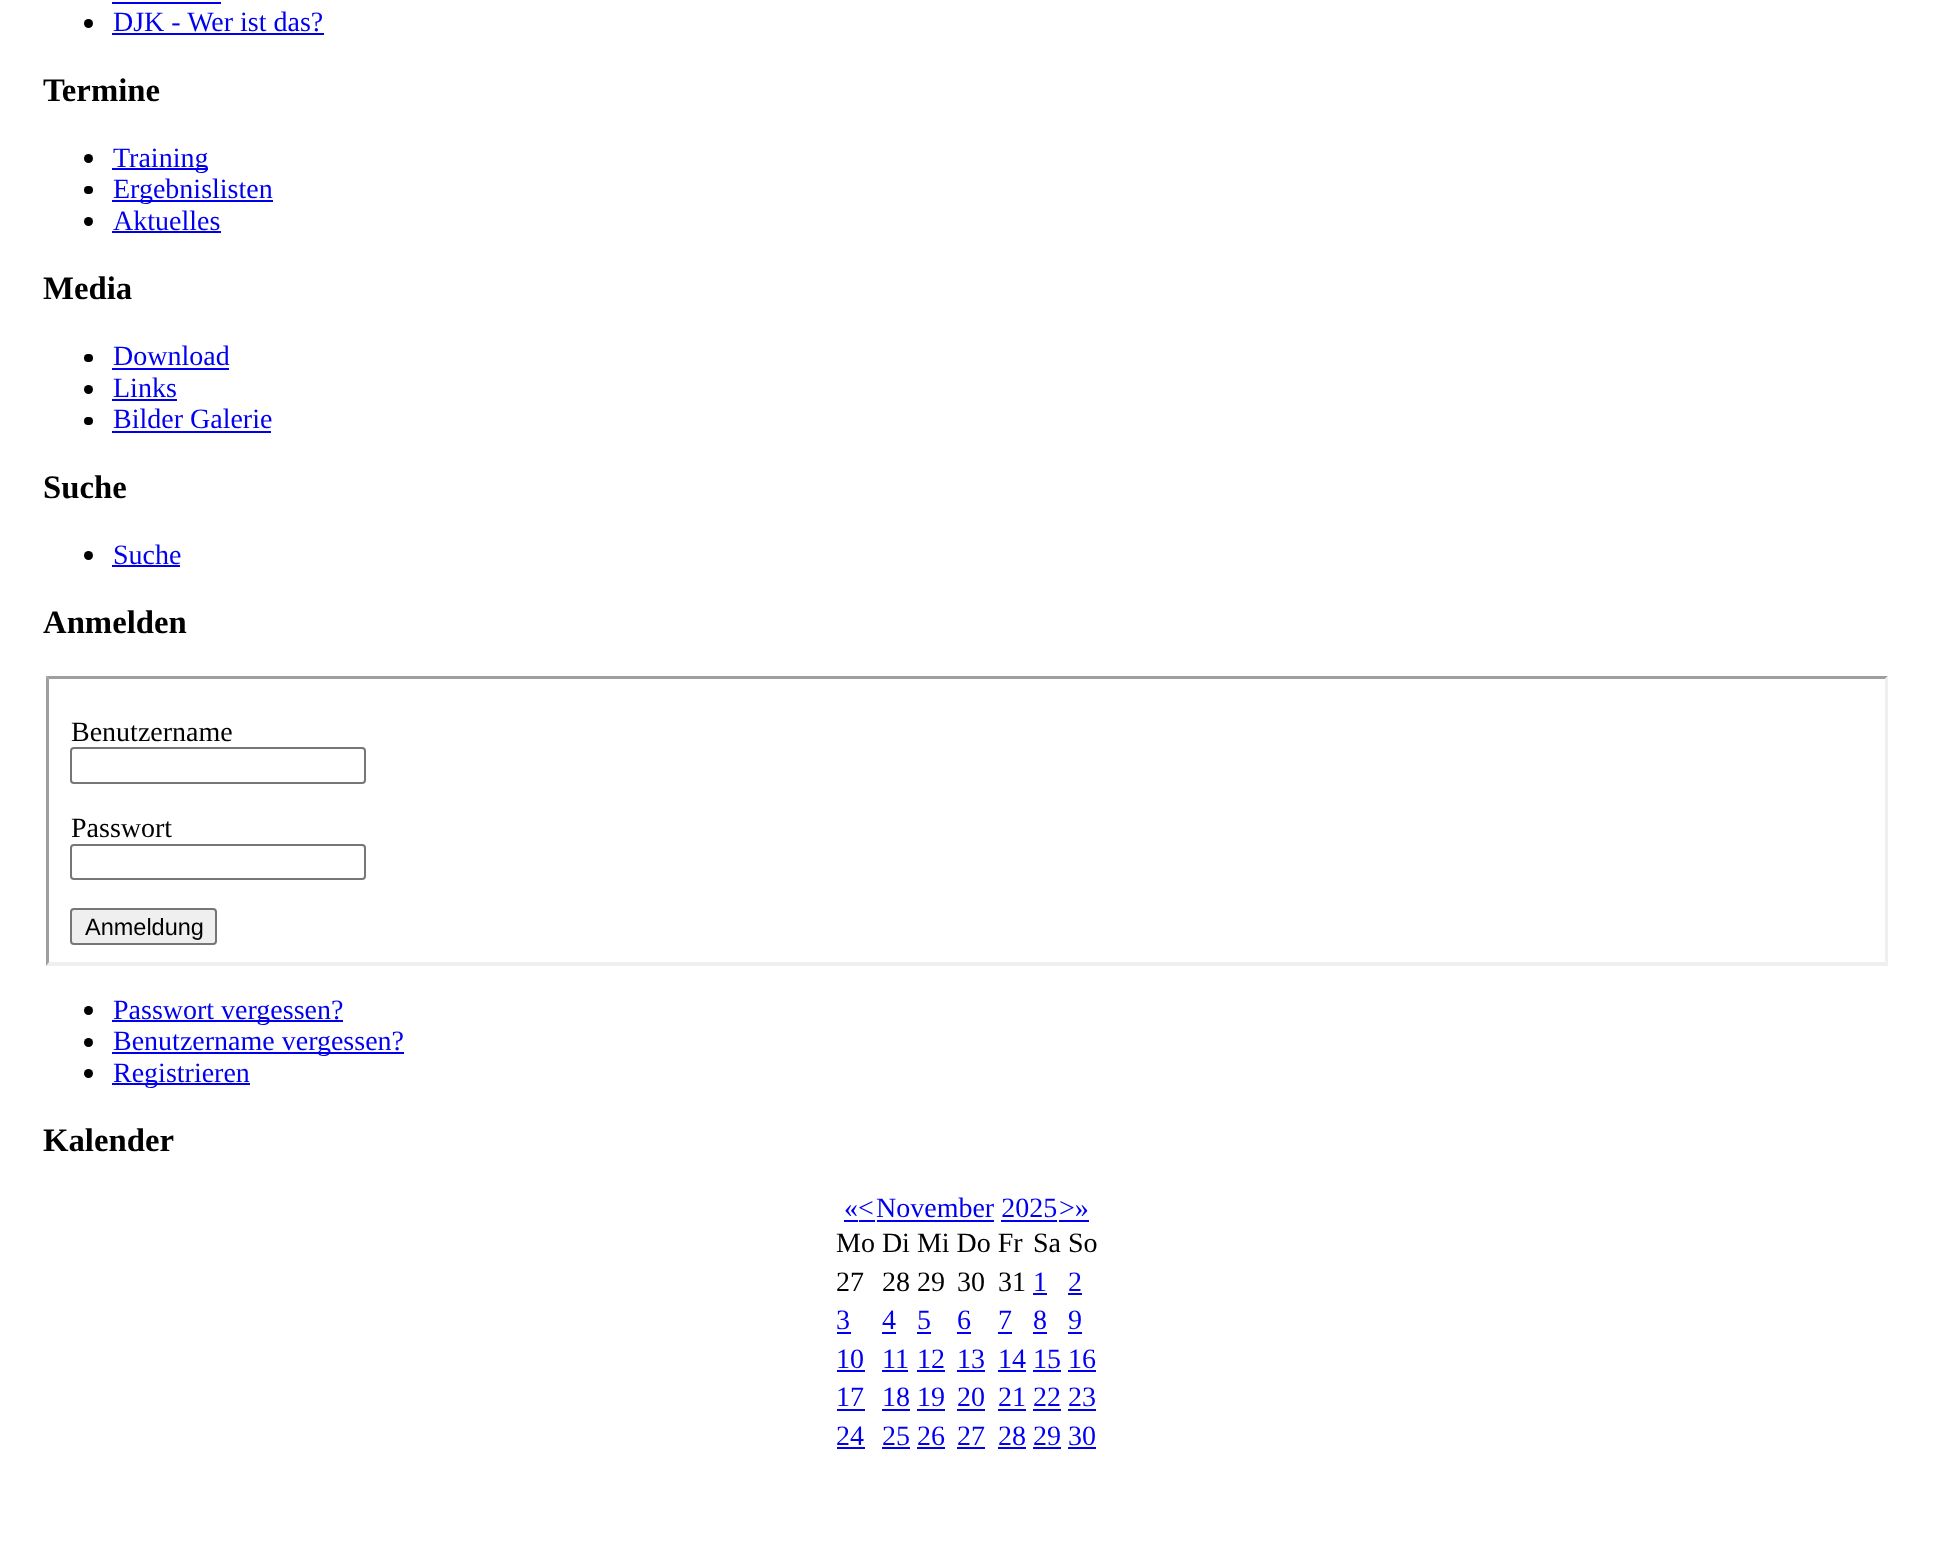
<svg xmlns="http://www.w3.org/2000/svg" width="1933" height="1563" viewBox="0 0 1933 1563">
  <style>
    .t1 { font: 28px Liberation Serif; fill: #00e; }
    .t2 { font: bold 32.75px Liberation Serif; fill: #000; }
    .t3 { font: 28px Liberation Serif; fill: #000; }
    .t4 { font: 23.5px Liberation Sans; fill: #000; }
  </style>
  <rect width="100%" height="100%" fill="#fff"/>
  <rect x="112" y="2" width="109" height="2" fill="#00e"/>
  <circle cx="88.5" cy="23.5" r="4.5" fill="#000"/>
  <text x="113" y="31" class="t1">DJK - Wer ist das?</text>
  <rect x="112" y="33" width="212" height="2" fill="#00e"/>
  <text x="43" y="101" class="t2">Termine</text>
  <circle cx="88.5" cy="158.5" r="4.5" fill="#000"/>
  <rect x="112" y="168" width="96" height="2" fill="#00e"/>
  <text x="113" y="167" class="t1">Training</text>
  <rect x="84" y="186" width="9" height="8" rx="4" fill="#000"/>
  <rect x="112" y="200" width="161" height="2" fill="#00e"/>
  <text x="113" y="198" class="t1">Ergebnislisten</text>
  <circle cx="88.5" cy="221.5" r="4.5" fill="#000"/>
  <text x="113" y="230" class="t1">Aktuelles</text>
  <rect x="112" y="231" width="109" height="2" fill="#00e"/>
  <text x="43" y="299" class="t2">Media</text>
  <rect x="84" y="354" width="9" height="8" rx="4" fill="#000"/>
  <text x="113" y="365" class="t1">Download</text>
  <rect x="112" y="368" width="117" height="2" fill="#00e"/>
  <circle cx="88.5" cy="389.5" r="4.5" fill="#000"/>
  <text x="113" y="397" class="t1">Links</text>
  <rect x="112" y="399" width="65" height="2" fill="#00e"/>
  <rect x="84" y="417" width="9" height="8" rx="4" fill="#000"/>
  <text x="113" y="428" class="t1">Bilder Galerie</text>
  <rect x="112" y="431" width="159" height="2" fill="#00e"/>
  <text x="43" y="498" class="t2">Suche</text>
  <circle cx="88.5" cy="555.5" r="4.5" fill="#000"/>
  <text x="113" y="564" class="t1">Suche</text>
  <rect x="112" y="565" width="68" height="2" fill="#00e"/>
  <text x="43" y="633" class="t2">Anmelden</text>
  <path d="M46 676H1888L1885 679H49Z" fill="#9f9f9f"/>
  <path d="M1888 676V966L1885 962V679Z" fill="#efefef"/>
  <path d="M1888 966H46L49 962H1885Z" fill="#efefef"/>
  <path d="M46 966V676L49 679V962Z" fill="#9f9f9f"/>
  <text x="71" y="741" class="t3">Benutzername</text>
  <rect x="71" y="748" width="294" height="35" rx="3" fill="none" stroke="#767676" stroke-width="2"/>
  <text x="71" y="837" class="t3">Passwort</text>
  <rect x="71" y="845" width="294" height="34" rx="3" fill="none" stroke="#767676" stroke-width="2"/>
  <rect x="71" y="909" width="145" height="35" rx="3" fill="#efefef" stroke="#767676" stroke-width="2"/>
  <text x="85" y="935" class="t4">Anmeldung</text>
  <circle cx="88.5" cy="1010.5" r="4.5" fill="#000"/>
  <rect x="112" y="1020" width="231" height="2" fill="#00e"/>
  <text x="113" y="1019" class="t1">Passwort vergessen?</text>
  <circle cx="88.5" cy="1042.5" r="4.5" fill="#000"/>
  <rect x="112" y="1052" width="292" height="2" fill="#00e"/>
  <text x="113" y="1050" class="t1">Benutzername vergessen?</text>
  <circle cx="88.5" cy="1073.5" r="4.5" fill="#000"/>
  <rect x="112" y="1083" width="138" height="2" fill="#00e"/>
  <text x="113" y="1082" class="t1">Registrieren</text>
  <text x="43" y="1151" class="t2">Kalender</text>
  <text x="844" y="1217" class="t1">«&lt;</text>
  <rect x="844" y="1220" width="14" height="2" fill="#00e"/>
  <text x="876" y="1217" class="t1">November 2025</text>
  <rect x="877" y="1220" width="117" height="2" fill="#00e"/>
  <rect x="1001" y="1220" width="56" height="2" fill="#00e"/>
  <text x="1059" y="1217" class="t1">&gt;»</text>
  <rect x="1059" y="1220" width="30" height="2" fill="#00e"/>
  <rect x="859" y="1220" width="16" height="2" fill="#00e"/>
  <text x="836" y="1252" class="t3">Mo Di Mi Do Fr</text>
  <text x="1033" y="1252" class="t3">Sa So</text>
  <text x="836" y="1291" class="t3">27</text>
  <text x="882" y="1291" class="t3">28 29</text>
  <text x="957" y="1291" class="t3">30</text>
  <text x="998" y="1291" class="t3">31</text>
  <text x="1033" y="1291" class="t1">1</text>
  <rect x="1033" y="1293" width="14" height="2" fill="#00e"/>
  <text x="1068" y="1291" class="t1">2</text>
  <rect x="1068" y="1293" width="14" height="2" fill="#00e"/>
  <text x="836" y="1329" class="t1">3</text>
  <rect x="837" y="1332" width="14" height="2" fill="#00e"/>
  <text x="882" y="1329" class="t1">4</text>
  <rect x="882" y="1332" width="14" height="2" fill="#00e"/>
  <text x="917" y="1329" class="t1">5</text>
  <rect x="917" y="1332" width="14" height="2" fill="#00e"/>
  <text x="957" y="1329" class="t1">6</text>
  <rect x="957" y="1332" width="14" height="2" fill="#00e"/>
  <text x="998" y="1329" class="t1">7</text>
  <rect x="998" y="1332" width="14" height="2" fill="#00e"/>
  <text x="1033" y="1329" class="t1">8</text>
  <rect x="1033" y="1332" width="14" height="2" fill="#00e"/>
  <text x="1068" y="1329" class="t1">9</text>
  <rect x="1068" y="1332" width="14" height="2" fill="#00e"/>
  <text x="836" y="1368" class="t1">10</text>
  <rect x="837" y="1370" width="28" height="2" fill="#00e"/>
  <text x="882" y="1368" class="t1">11</text>
  <rect x="882" y="1370" width="26" height="2" fill="#00e"/>
  <text x="917" y="1368" class="t1">12</text>
  <rect x="917" y="1370" width="28" height="2" fill="#00e"/>
  <text x="957" y="1368" class="t1">13</text>
  <rect x="957" y="1370" width="28" height="2" fill="#00e"/>
  <text x="998" y="1368" class="t1">14 15 16</text>
  <rect x="998" y="1370" width="28" height="2" fill="#00e"/>
  <rect x="1033" y="1370" width="28" height="2" fill="#00e"/>
  <rect x="1068" y="1370" width="28" height="2" fill="#00e"/>
  <text x="836" y="1406" class="t1">17</text>
  <rect x="837" y="1409" width="28" height="2" fill="#00e"/>
  <text x="882" y="1406" class="t1">18 19</text>
  <rect x="882" y="1409" width="28" height="2" fill="#00e"/>
  <text x="957" y="1406" class="t1">20</text>
  <rect x="957" y="1409" width="28" height="2" fill="#00e"/>
  <text x="998" y="1406" class="t1">21 22 23</text>
  <rect x="998" y="1409" width="28" height="2" fill="#00e"/>
  <rect x="917" y="1409" width="28" height="2" fill="#00e"/>
  <rect x="1033" y="1409" width="28" height="2" fill="#00e"/>
  <rect x="1068" y="1409" width="28" height="2" fill="#00e"/>
  <text x="836" y="1445" class="t1">24</text>
  <rect x="837" y="1447" width="28" height="2" fill="#00e"/>
  <text x="882" y="1445" class="t1">25 26</text>
  <rect x="882" y="1447" width="28" height="2" fill="#00e"/>
  <text x="957" y="1445" class="t1">27</text>
  <rect x="957" y="1447" width="28" height="2" fill="#00e"/>
  <text x="998" y="1445" class="t1">28 29 30</text>
  <rect x="998" y="1447" width="28" height="2" fill="#00e"/>
  <rect x="917" y="1447" width="28" height="2" fill="#00e"/>
  <rect x="1033" y="1447" width="28" height="2" fill="#00e"/>
  <rect x="1068" y="1447" width="28" height="2" fill="#00e"/>
</svg>
